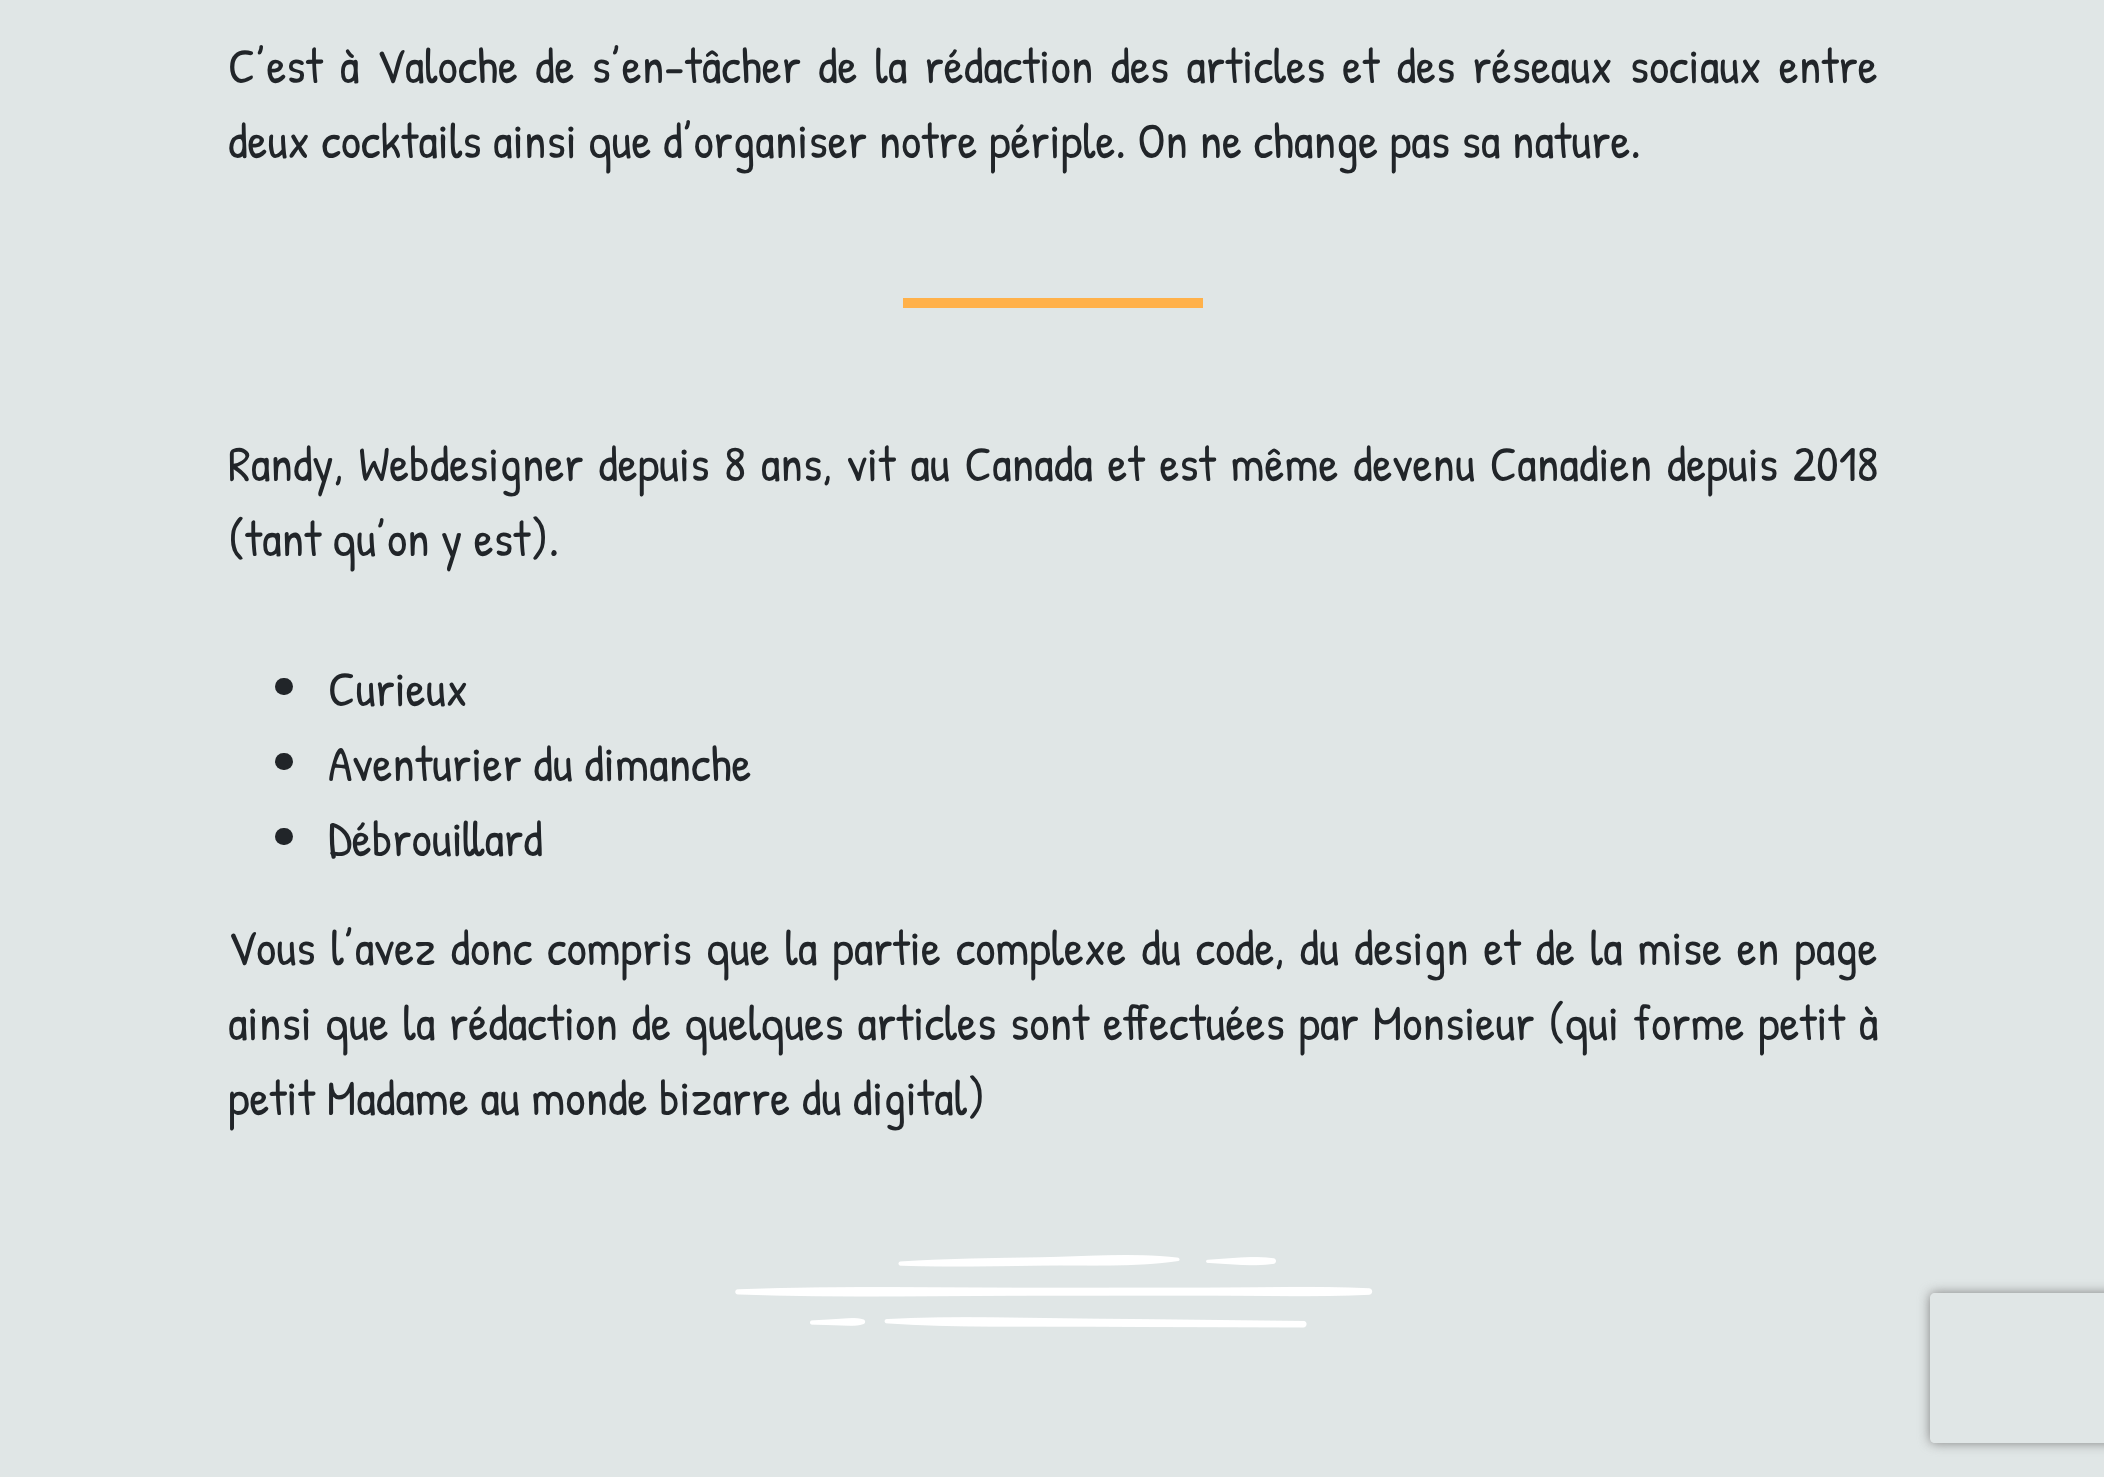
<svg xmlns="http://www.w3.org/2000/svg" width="2104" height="1477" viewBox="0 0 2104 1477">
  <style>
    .t1 { font: 50px Patrick Hand; fill: #212529; }
  </style>
  <defs>
    <clipPath id="clip1"><path d="M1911 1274H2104V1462H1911ZM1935 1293H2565C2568 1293 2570 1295 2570 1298V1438C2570 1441 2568 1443 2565 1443H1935C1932 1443 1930 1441 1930 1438V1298C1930 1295 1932 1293 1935 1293Z" clip-rule="evenodd"/></clipPath>
  </defs>
  <rect width="100%" height="100%" fill="#e0e6e6"/>
  <text x="228" y="83" word-spacing="5.6" class="t1">C’est à Valoche de s’en-tâcher de la rédaction des articles et des réseaux sociaux entre</text>
  <text x="228" y="158" class="t1">deux cocktails ainsi que d’organiser notre périple. On ne change pas sa nature.</text>
  <rect x="903" y="298" width="300" height="10" fill="#ffb14a"/>
  <text x="228" y="481" word-spacing="3.25" class="t1">Randy, Webdesigner depuis 8 ans, vit au Canada et est même devenu Canadien depuis 2018</text>
  <text x="228" y="556" class="t1">(tant qu’on y est).</text>
  <rect x="275" y="678" width="18" height="17" rx="8.5" fill="#212529"/>
  <text x="328" y="706" class="t1">Curieux</text>
  <rect x="275" y="753" width="18" height="17" rx="8.5" fill="#212529"/>
  <text x="328" y="781" class="t1">Aventurier du dimanche</text>
  <rect x="275" y="828" width="18" height="17" rx="8.5" fill="#212529"/>
  <text x="328" y="856" class="t1">Débrouillard</text>
  <text x="228" y="965" word-spacing="3.4" class="t1">Vous l’avez donc compris que la partie complexe du code, du design et de la mise en page</text>
  <text x="228" y="1040" word-spacing="2.25" class="t1">ainsi que la rédaction de quelques articles sont effectuées par Monsieur (qui forme petit à</text>
  <text x="228" y="1115" class="t1">petit Madame au monde bizarre du digital)</text>
  <image x="735" y="1255" width="638" height="73" href="images/1.png"/>
  <g clip-path="url(#clip1)">
    <rect x="1930" y="1293" width="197" height="150" rx="5" fill="#808080" filter="blur(6px)"/>
  </g>
</svg>
